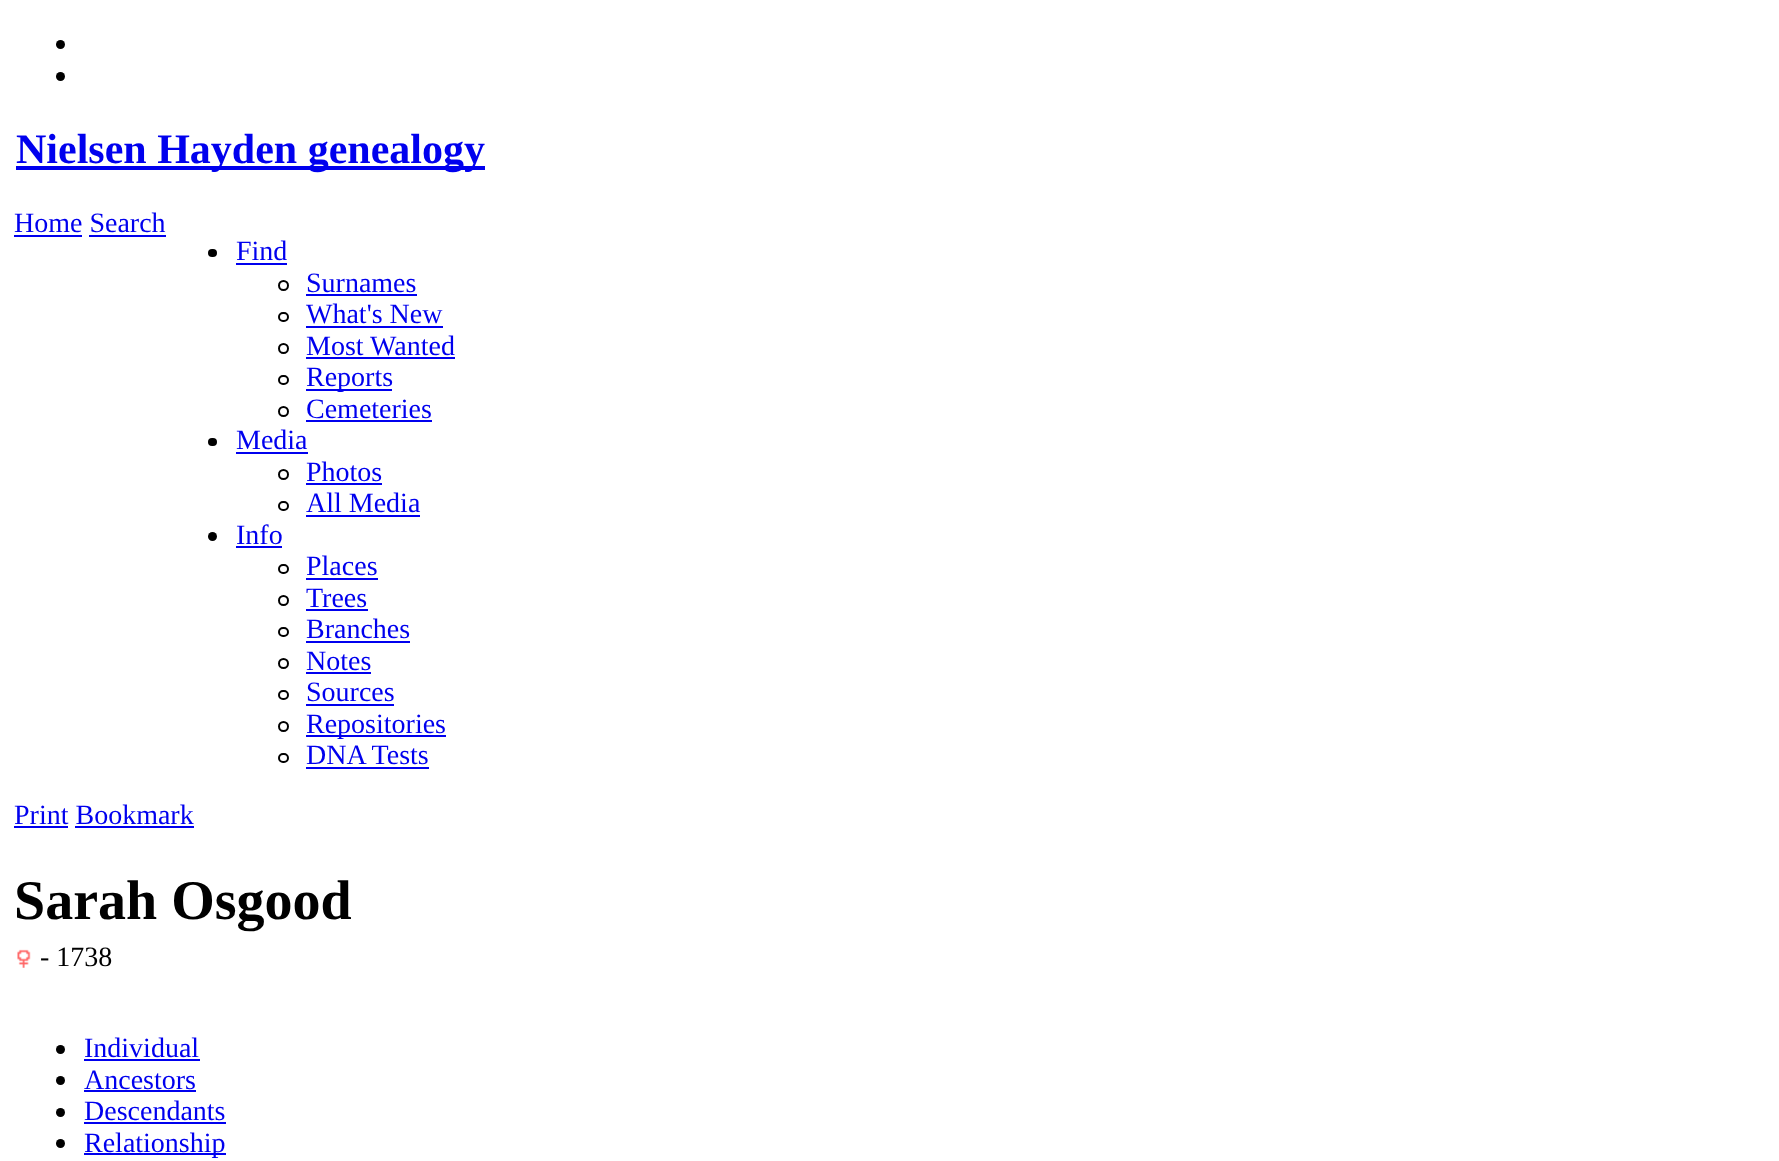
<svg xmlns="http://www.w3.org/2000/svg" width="1779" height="1161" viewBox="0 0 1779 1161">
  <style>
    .t1 { font: bold 42px Liberation Serif; fill: #00e; }
    .t2 { font: 28px Liberation Serif; fill: #00e; }
    .t3 { font: bold 56px Liberation Serif; fill: #000; }
    .t4 { font: 28px Liberation Serif; fill: #000; }
  </style>
  <rect width="100%" height="100%" fill="#fff"/>
  <circle cx="60.5" cy="44.5" r="4.5" fill="#000"/>
  <circle cx="60.5" cy="76.5" r="4.5" fill="#000"/>
  <rect x="16" y="166" width="469" height="4" fill="#00e"/>
  <text x="16" y="163" class="t1">Nielsen Hayden genealogy</text>
  <text x="14" y="232" class="t2">Home Search</text>
  <rect x="14" y="235" width="68" height="2" fill="#00e"/>
  <rect x="89" y="235" width="77" height="2" fill="#00e"/>
  <rect x="208" y="249" width="9" height="8" rx="4" fill="#000"/>
  <text x="236" y="260" class="t2">Find</text>
  <rect x="236" y="263" width="51" height="2" fill="#00e"/>
  <circle cx="283.5" cy="285.5" r="4.5" fill="none" stroke="#000" stroke-width="2"/>
  <text x="306" y="292" class="t2">Surnames</text>
  <rect x="306" y="294" width="111" height="2" fill="#00e"/>
  <rect x="279" y="313" width="9" height="8" rx="4" fill="none" stroke="#000" stroke-width="2"/>
  <text x="306" y="323" class="t2">What's New</text>
  <rect x="306" y="326" width="137" height="2" fill="#00e"/>
  <circle cx="283.5" cy="348.5" r="4.5" fill="none" stroke="#000" stroke-width="2"/>
  <text x="306" y="355" class="t2">Most Wanted</text>
  <rect x="306" y="357" width="149" height="2" fill="#00e"/>
  <rect x="279" y="376" width="9" height="8" rx="4" fill="none" stroke="#000" stroke-width="2"/>
  <rect x="306" y="389" width="86" height="2" fill="#00e"/>
  <text x="306" y="386" class="t2">Reports</text>
  <circle cx="283.5" cy="411.5" r="4.5" fill="none" stroke="#000" stroke-width="2"/>
  <text x="306" y="418" class="t2">Cemeteries</text>
  <rect x="306" y="420" width="126" height="2" fill="#00e"/>
  <rect x="208" y="438" width="9" height="8" rx="4" fill="#000"/>
  <text x="236" y="449" class="t2">Media</text>
  <rect x="236" y="452" width="72" height="2" fill="#00e"/>
  <circle cx="283.5" cy="474.5" r="4.5" fill="none" stroke="#000" stroke-width="2"/>
  <text x="306" y="481" class="t2">Photos</text>
  <rect x="306" y="483" width="76" height="2" fill="#00e"/>
  <rect x="279" y="502" width="9" height="8" rx="4" fill="none" stroke="#000" stroke-width="2"/>
  <text x="306" y="512" class="t2">All Media</text>
  <rect x="306" y="515" width="114" height="2" fill="#00e"/>
  <circle cx="212.5" cy="536.5" r="4.5" fill="#000"/>
  <text x="236" y="544" class="t2">Info</text>
  <rect x="236" y="546" width="46" height="2" fill="#00e"/>
  <rect x="279" y="565" width="9" height="8" rx="4" fill="none" stroke="#000" stroke-width="2"/>
  <text x="306" y="575" class="t2">Places</text>
  <rect x="306" y="578" width="72" height="2" fill="#00e"/>
  <circle cx="283.5" cy="600.5" r="4.5" fill="none" stroke="#000" stroke-width="2"/>
  <text x="306" y="607" class="t2">Trees</text>
  <rect x="306" y="609" width="62" height="2" fill="#00e"/>
  <rect x="279" y="628" width="9" height="8" rx="4" fill="none" stroke="#000" stroke-width="2"/>
  <text x="306" y="638" class="t2">Branches</text>
  <rect x="306" y="641" width="104" height="2" fill="#00e"/>
  <circle cx="283.5" cy="663.5" r="4.5" fill="none" stroke="#000" stroke-width="2"/>
  <text x="306" y="670" class="t2">Notes</text>
  <rect x="306" y="672" width="65" height="2" fill="#00e"/>
  <rect x="279" y="691" width="9" height="8" rx="4" fill="none" stroke="#000" stroke-width="2"/>
  <text x="306" y="701" class="t2">Sources</text>
  <rect x="306" y="704" width="88" height="2" fill="#00e"/>
  <circle cx="283.5" cy="726.5" r="4.5" fill="none" stroke="#000" stroke-width="2"/>
  <rect x="306" y="735" width="140" height="2" fill="#00e"/>
  <text x="306" y="733" class="t2">Repositories</text>
  <rect x="279" y="754" width="9" height="8" rx="4" fill="none" stroke="#000" stroke-width="2"/>
  <text x="306" y="764" class="t2">DNA Tests</text>
  <rect x="306" y="767" width="123" height="2" fill="#00e"/>
  <text x="14" y="824" class="t2">Print Bookmark</text>
  <rect x="14" y="826" width="54" height="2" fill="#00e"/>
  <rect x="75" y="826" width="119" height="2" fill="#00e"/>
  <text x="14" y="919" class="t3">Sarah Osgood</text>
  <image x="17" y="949" width="14" height="19" href="images/1.png"/>
  <text x="40" y="966" class="t4">- 1738</text>
  <circle cx="60.5" cy="1049.5" r="4.5" fill="#000"/>
  <text x="84" y="1057" class="t2">Individual</text>
  <rect x="84" y="1059" width="116" height="2" fill="#00e"/>
  <circle cx="60.5" cy="1080.5" r="4.5" fill="#000"/>
  <text x="84" y="1089" class="t2">Ancestors</text>
  <rect x="84" y="1090" width="112" height="2" fill="#00e"/>
  <circle cx="60.5" cy="1112.5" r="4.5" fill="#000"/>
  <text x="84" y="1120" class="t2">Descendants</text>
  <rect x="84" y="1122" width="142" height="2" fill="#00e"/>
  <circle cx="60.5" cy="1143.5" r="4.5" fill="#000"/>
  <rect x="84" y="1153" width="142" height="2" fill="#00e"/>
  <text x="84" y="1152" class="t2">Relationship</text>
</svg>
